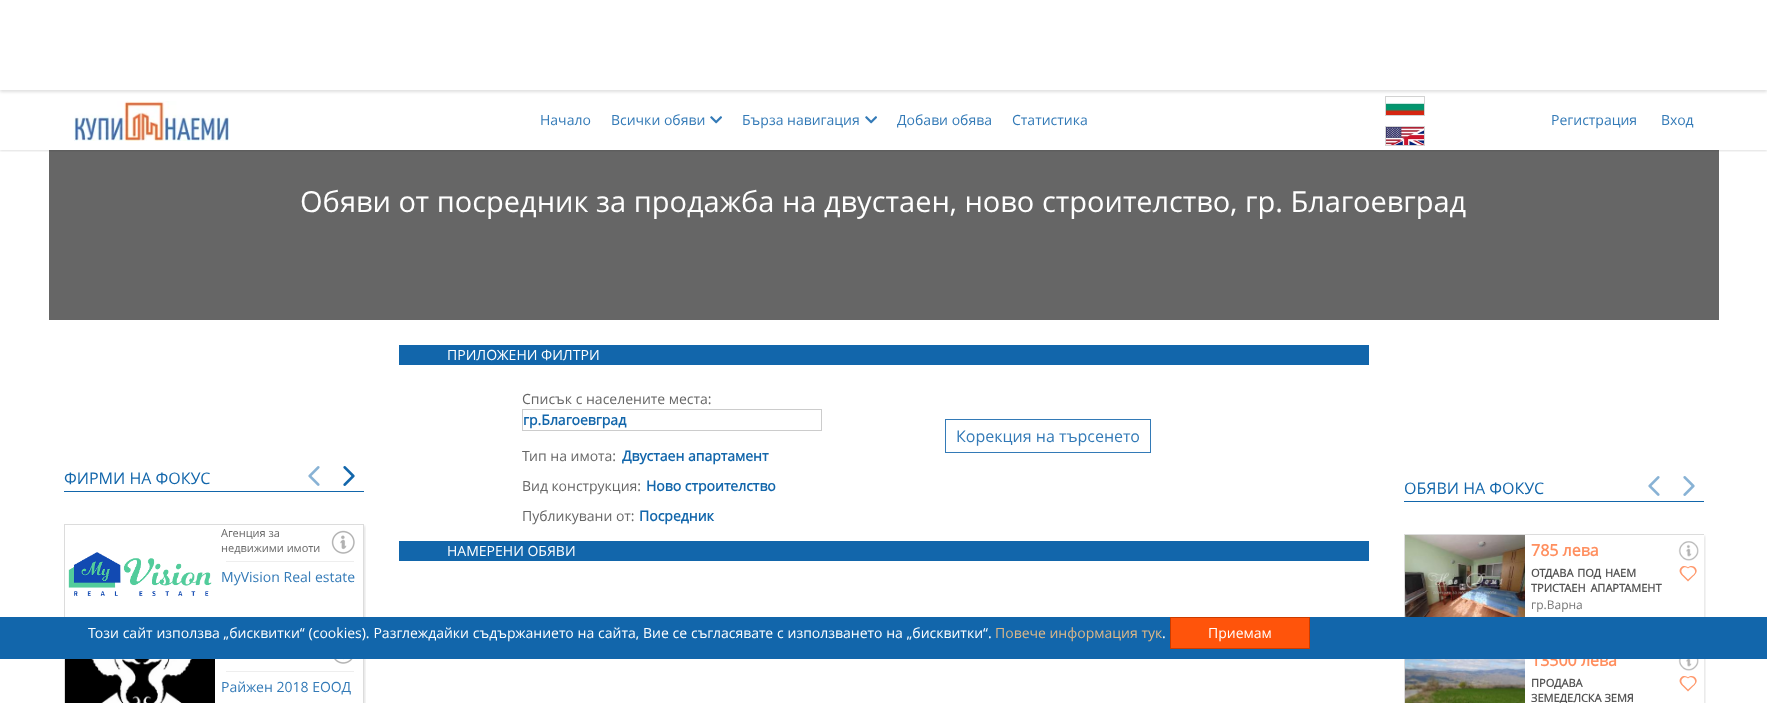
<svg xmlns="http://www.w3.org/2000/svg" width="1767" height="703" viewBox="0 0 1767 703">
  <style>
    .t1 { font: 14px Open Sans; fill: #337ab7; }
    .t2 { font: 29px Open Sans; fill: #fff; }
    .t3 { font: 16px Open Sans; fill: #1266ab; }
    .t4 { font: 11px Open Sans; fill: #666; }
    .t5 { font: 14px Open Sans; fill: #fff; }
    .t6 { font: 14px Open Sans; fill: #666; }
    .t7 { font: bold 14px Open Sans; fill: #1266ab; }
    .t8 { font: 16px Open Sans; fill: #337ab7; }
    .t9 { font: bold 16px Open Sans; fill: #ff8f5f; }
    .t10 { font: bold 11px Open Sans; fill: #545454; }
    .t11 { font: 12px Open Sans; fill: #777; }
    .t12 { font: 14px Open Sans; fill: #deb887; }
  </style>
  <defs>
    <clipPath id="clip1"><rect x="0" y="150" width="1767" height="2"/></clipPath>
    <clipPath id="clip2"><rect x="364" y="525" width="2" height="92"/></clipPath>
    <clipPath id="clip3"><rect x="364" y="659" width="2" height="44"/></clipPath>
    <clipPath id="clip4"><rect x="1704" y="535" width="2" height="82"/></clipPath>
    <clipPath id="clip5"><rect x="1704" y="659" width="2" height="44"/></clipPath>
  </defs>
  <rect width="100%" height="100%" fill="#fff"/>
  <g clip-path="url(#clip1)">
    <rect x="0" y="91" width="1767" height="60" fill="#0000001f" filter="blur(1px)"/>
  </g>
  <image x="1386" y="97" width="38" height="18" href="images/3.png"/>
  <rect x="1385.5" y="96.5" width="39" height="19" fill="none" stroke="#d3d3d3"/>
  <rect x="0" y="2" width="1767" height="90" fill="#0000001f" filter="blur(1.5px)"/>
  <rect x="0" y="0" width="1767" height="90" fill="#fff"/>
  <image x="74" y="101" width="155" height="40" href="images/1.png"/>
  <text x="540" y="125" class="t1">Начало</text>
  <text x="611" y="125" class="t1">Всички обяви</text>
  <image x="710" y="116" width="12" height="8" href="images/2.png"/>
  <text x="742" y="125" class="t1">Бърза навигация</text>
  <image x="865" y="116" width="12" height="8" href="images/2.png"/>
  <text x="897" y="125" class="t1">Добави обява</text>
  <text x="1012" y="125" class="t1">Статистика</text>
  <image x="1386" y="127" width="38" height="18" href="images/4.png"/>
  <rect x="1385.5" y="126.5" width="39" height="19" fill="none" stroke="#d3d3d3"/>
  <text x="1551" y="125" class="t1">Регистрация</text>
  <text x="1661" y="125" class="t1">Вход</text>
  <rect x="49" y="150" width="1670" height="170" fill="#00000099"/>
  <text x="300" y="212" class="t2">Обяви от посредник за продажба на двустаен, ново строителство, гр. Благоевград</text>
  <rect x="64" y="491" width="300" height="1" fill="#1266ab"/>
  <text x="64" y="484" class="t3">ФИРМИ НА ФОКУС</text>
  <image x="308" y="466" width="12" height="20" href="images/5.png"/>
  <image x="343" y="466" width="12" height="20" href="images/6.png"/>
  <g clip-path="url(#clip2)">
    <rect x="65" y="526" width="300" height="100" fill="#0000001f" filter="blur(1.5px)"/>
  </g>
  <rect x="64.5" y="524.5" width="299" height="99" fill="none" stroke="#dcdcdc"/>
  <image x="68" y="552" width="144" height="44" href="images/7.png"/>
  <text x="221" y="537" class="t4">Агенция за</text>
  <text x="221" y="552" class="t4">недвижими имоти</text>
  <image x="331" y="530" width="24" height="24" href="images/8.png"/>
  <rect x="226" y="561" width="128" height="1" fill="#eee"/>
  <text x="221" y="582" class="t1">MyVision Real estate</text>
  <g clip-path="url(#clip3)">
    <rect x="65" y="636" width="300" height="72" fill="#0000001f" filter="blur(1.5px)"/>
  </g>
  <rect x="64.5" y="634.5" width="299" height="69" fill="none" stroke="#dcdcdc"/>
  <image x="65" y="659" width="150" height="44" href="images/9.png"/>
  <image x="334" y="659" width="19" height="5" href="images/10.png"/>
  <rect x="226" y="671" width="128" height="1" fill="#eee"/>
  <text x="221" y="692" class="t1">Райжен 2018 ЕООД</text>
  <rect x="399" y="345" width="970" height="20" fill="#1266ab"/>
  <text x="447" y="360" class="t5">ПРИЛОЖЕНИ ФИЛТРИ</text>
  <text x="522" y="404" class="t6">Списък с населените места:</text>
  <rect x="522.5" y="409.5" width="299" height="21" fill="none" stroke="#ccc"/>
  <text x="523" y="425" class="t7">гр.Благоевград</text>
  <text x="522" y="461" class="t6">Тип на имота:</text>
  <text x="622" y="461" class="t7">Двустаен апартамент</text>
  <text x="522" y="491" class="t6">Вид конструкция:</text>
  <text x="646" y="491" class="t7">Ново строителство</text>
  <text x="522" y="521" class="t6">Публикувани от:</text>
  <text x="639" y="521" class="t7">Посредник</text>
  <rect x="945.5" y="419.5" width="205" height="33" fill="none" stroke="#337ab7"/>
  <text x="956" y="442" class="t8">Корекция на търсенето</text>
  <rect x="399" y="541" width="970" height="20" fill="#1266ab"/>
  <text x="447" y="556" class="t5">НАМЕРЕНИ ОБЯВИ</text>
  <rect x="1404" y="501" width="300" height="1" fill="#1266ab"/>
  <text x="1404" y="494" class="t3">ОБЯВИ НА ФОКУС</text>
  <image x="1648" y="476" width="12" height="20" href="images/5.png"/>
  <image x="1683" y="476" width="12" height="20" href="images/11.png"/>
  <g clip-path="url(#clip4)">
    <rect x="1405" y="536" width="300" height="100" fill="#0000001f" filter="blur(1.5px)"/>
  </g>
  <rect x="1404" y="534" width="300" height="1" fill="#dcdcdc"/>
  <rect x="1404" y="534" width="1" height="83" fill="#dcdcdc"/>
  <image x="1405" y="535" width="120" height="82" href="images/12.png"/>
  <text x="1531" y="556" class="t9">785 лева</text>
  <image x="1678" y="541" width="21" height="20" href="images/13.png"/>
  <text x="1531" y="577" word-spacing="1" class="t10">ОТДАВА ПОД НАЕМ</text>
  <path d="M1681 574.5L1688 567.5L1695 574.5L1688 581.5Z" fill="#ff996d"/>
  <path d="M1681 567.5C1685.5 563 1693 570 1688 574.5C1683.5 579 1676.5 572 1681 567.5Z" fill="#ff996d"/>
  <path d="M1688 567.5C1693 563 1700 570 1695 574.5C1690.5 579 1683.5 572 1688 567.5Z" fill="#ff996d"/>
  <path d="M1682.5 574L1688 568.5L1694 574L1688 579.5Z" fill="#fff"/>
  <path d="M1682.5 568.5C1686 564.5 1692 570.5 1688 574C1684.5 577.5 1679 572 1682.5 568.5Z" fill="#fff"/>
  <path d="M1688 568.5C1692 564.5 1697.5 570.5 1694 574C1690 577.5 1684.5 572 1688 568.5Z" fill="#fff"/>
  <text x="1531" y="592" word-spacing="2" class="t10">ТРИСТАЕН АПАРТАМЕНТ</text>
  <text x="1531" y="609" class="t11">гр.Варна</text>
  <g clip-path="url(#clip5)">
    <rect x="1405" y="646" width="300" height="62" fill="#0000001f" filter="blur(1.5px)"/>
  </g>
  <rect x="1404" y="659" width="1" height="44" fill="#dcdcdc"/>
  <image x="1405" y="659" width="120" height="44" href="images/14.png"/>
  <text x="1531" y="666" class="t9">13500 лева</text>
  <image x="1678" y="659" width="21" height="12" href="images/15.png"/>
  <text x="1531" y="687" class="t10">ПРОДАВА</text>
  <path d="M1681 684.5L1688 677.5L1695 684.5L1688 691.5Z" fill="#ff996d"/>
  <path d="M1681 677.5C1685.5 673 1693 680 1688 684.5C1683.5 689 1676.5 682 1681 677.5Z" fill="#ff996d"/>
  <path d="M1688 677.5C1693 673 1700 680 1695 684.5C1690.5 689 1683.5 682 1688 677.5Z" fill="#ff996d"/>
  <path d="M1682.5 684L1688 678.5L1694 684L1688 689.5Z" fill="#fff"/>
  <path d="M1682.5 678.5C1686 674.5 1692 680.5 1688 684C1684.5 687.5 1679 682 1682.5 678.5Z" fill="#fff"/>
  <path d="M1688 678.5C1692 674.5 1697.5 680.5 1694 684C1690 687.5 1684.5 682 1688 678.5Z" fill="#fff"/>
  <text x="1531" y="702" class="t10">ЗЕМЕДЕЛСКА ЗЕМЯ</text>
  <rect x="0" y="617" width="1767" height="42" fill="#1266ab"/>
  <text x="88" y="638" word-spacing="0.2" class="t5">Този сайт използва „бисквитки“ (cookies). Разглеждайки съдържанието на сайта, Вие се съгласявате с използването на „бисквитки“.</text>
  <text x="995" y="638" class="t12">Повече информация тук</text>
  <text x="1162" y="638" class="t5">.</text>
  <rect x="1170.5" y="617.5" width="139" height="31" fill="#ff540b" stroke="#ca3c00"/>
  <text x="1208" y="638" class="t5">Приемам</text>
</svg>
